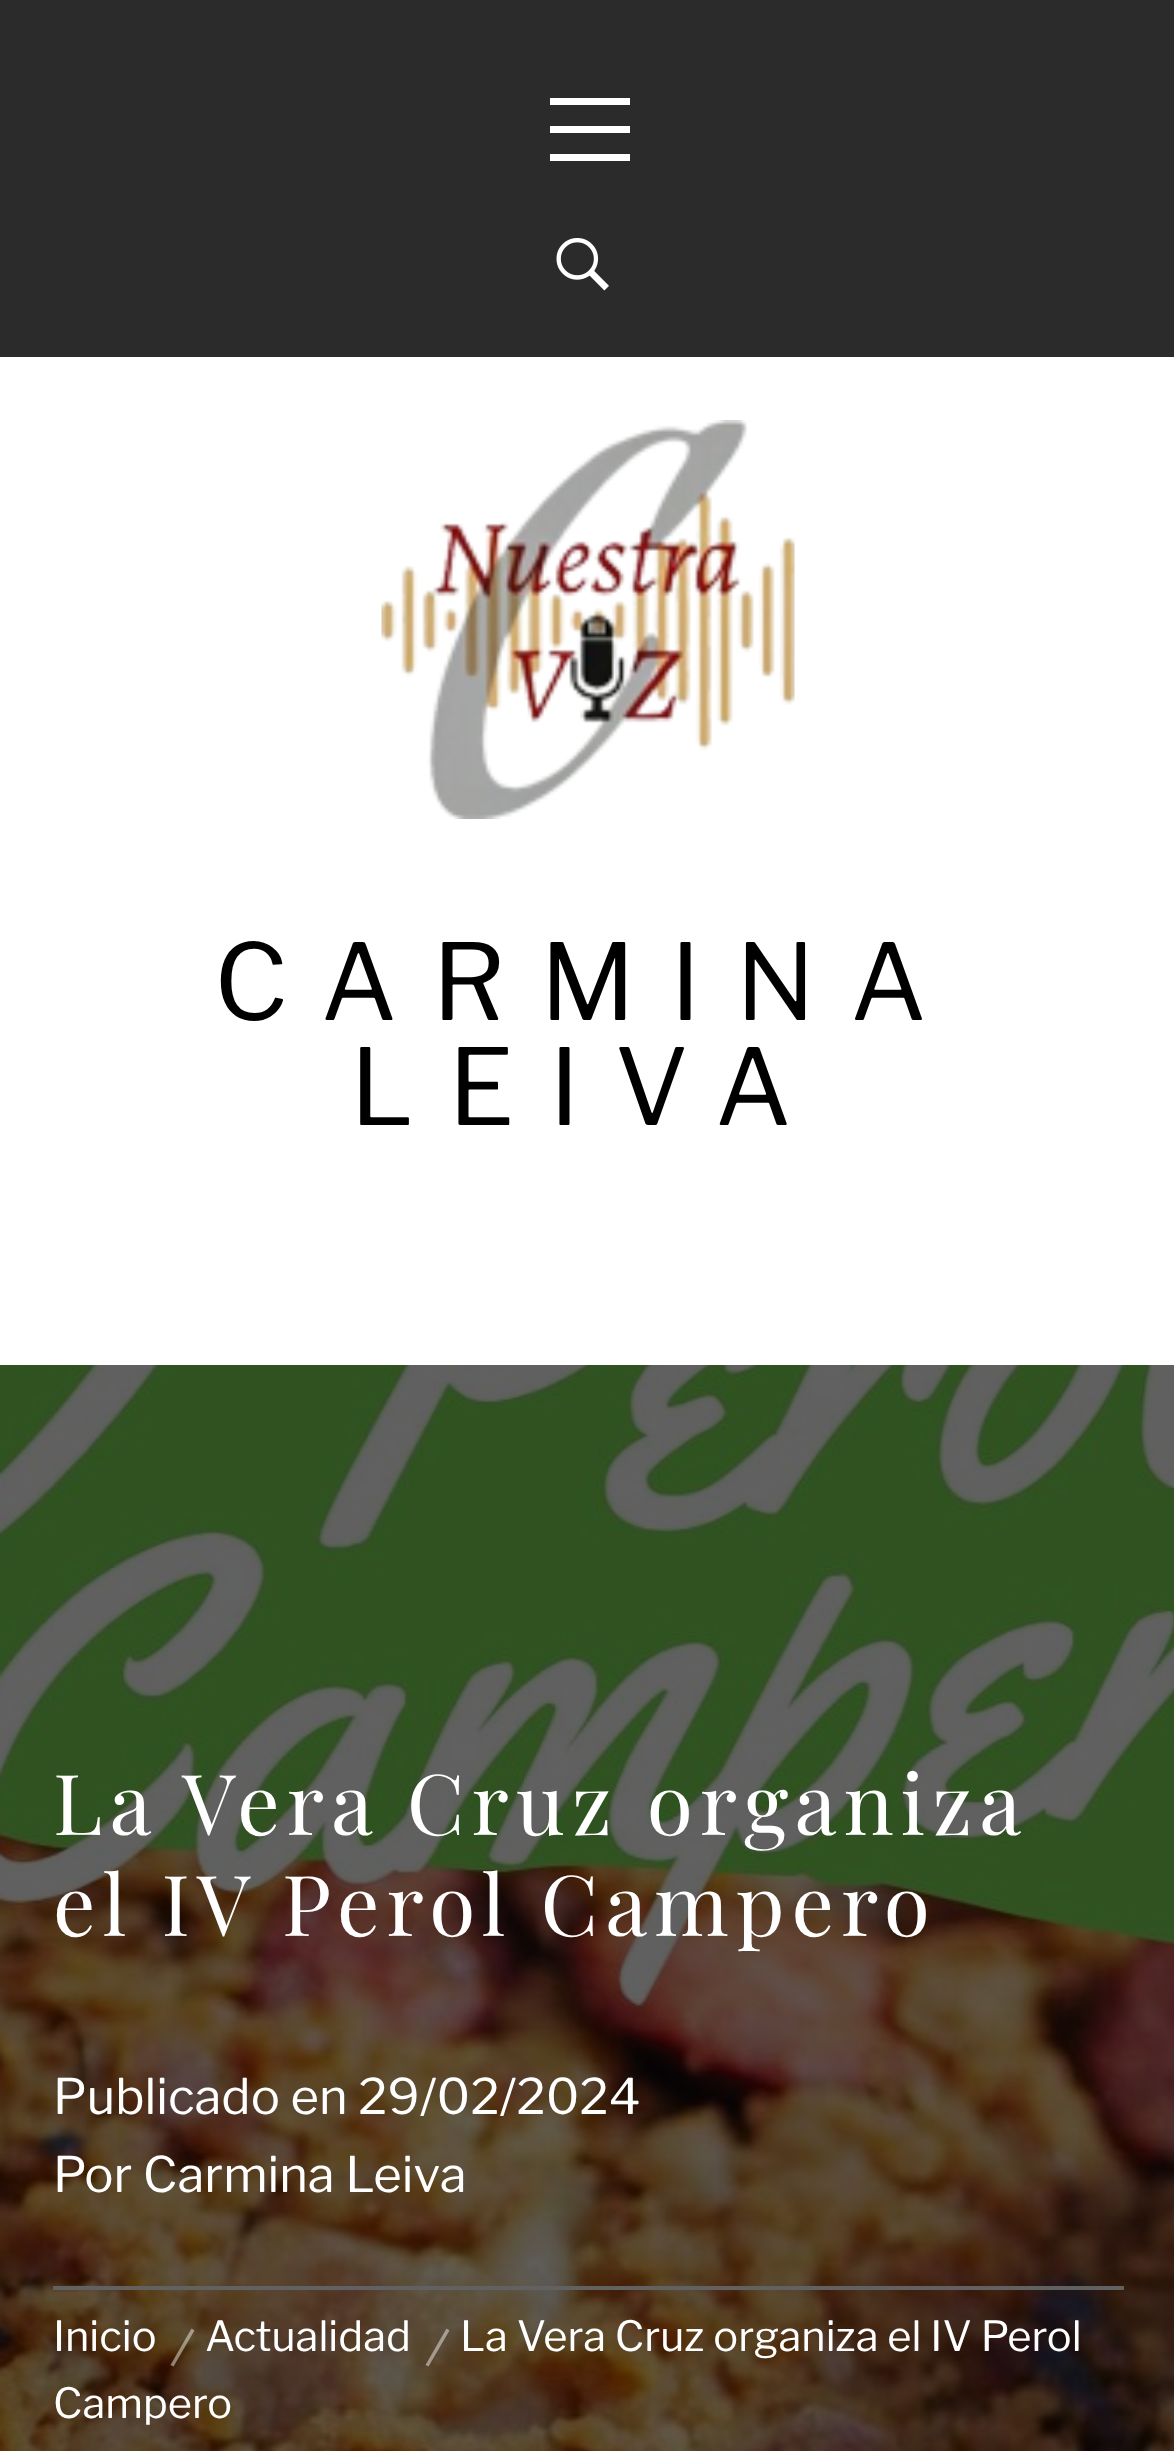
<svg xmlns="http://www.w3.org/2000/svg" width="1174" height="2451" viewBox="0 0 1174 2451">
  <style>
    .t1 { font: 105px Libre Franklin; letter-spacing: 35px; fill: #000; }
    .t2 { font: 84px Playfair Display; letter-spacing: 7px; fill: #fff; }
    .t3 { font: 49px Libre Franklin; fill: #fff; }
    .t4 { font: 41.6px Libre Franklin; fill: #fff; }
  </style>
  <rect width="100%" height="100%" fill="#fff"/>
  <rect x="0" y="0" width="1174" height="357" fill="#2b2b2b"/>
  <rect x="550" y="126" width="80" height="7" fill="#fff"/>
  <rect x="550" y="98" width="80" height="7" fill="#fff"/>
  <rect x="550" y="154" width="80" height="7" fill="#fff"/>
  <image x="556" y="238" width="53" height="53" href="images/1.png"/>
  <image x="381" y="420" width="414" height="399" href="images/2.png"/>
  <text x="214" y="1020" class="t1">CARMINA</text>
  <text x="350" y="1125" class="t1">LEIVA</text>
  <image x="0" y="1365" width="1174" height="1086" href="images/3.png"/>
  <text x="53" y="1835" class="t2">La Vera Cruz organiza</text>
  <text x="53" y="1936" class="t2">el IV Perol Campero</text>
  <text x="53" y="2114" class="t3">Publicado en 29/02/2024</text>
  <text x="53" y="2192" class="t3">Por Carmina Leiva</text>
  <rect x="53" y="2286" width="1071" height="4" fill="#616161"/>
  <path d="M446.5 2328.5L449.5 2330.5L428.5 2366.5L425.5 2365Z" fill="#ffffff73"/>
  <text x="460" y="2351" class="t4">La Vera Cruz organiza el IV Perol</text>
  <text x="53" y="2418" class="t4">Campero</text>
  <text x="53" y="2351" class="t4">Inicio</text>
  <path d="M191.5 2328.5L194.5 2330.5L173.5 2366.5L170.5 2365Z" fill="#ffffff73"/>
  <text x="205" y="2351" class="t4">Actualidad</text>
</svg>
